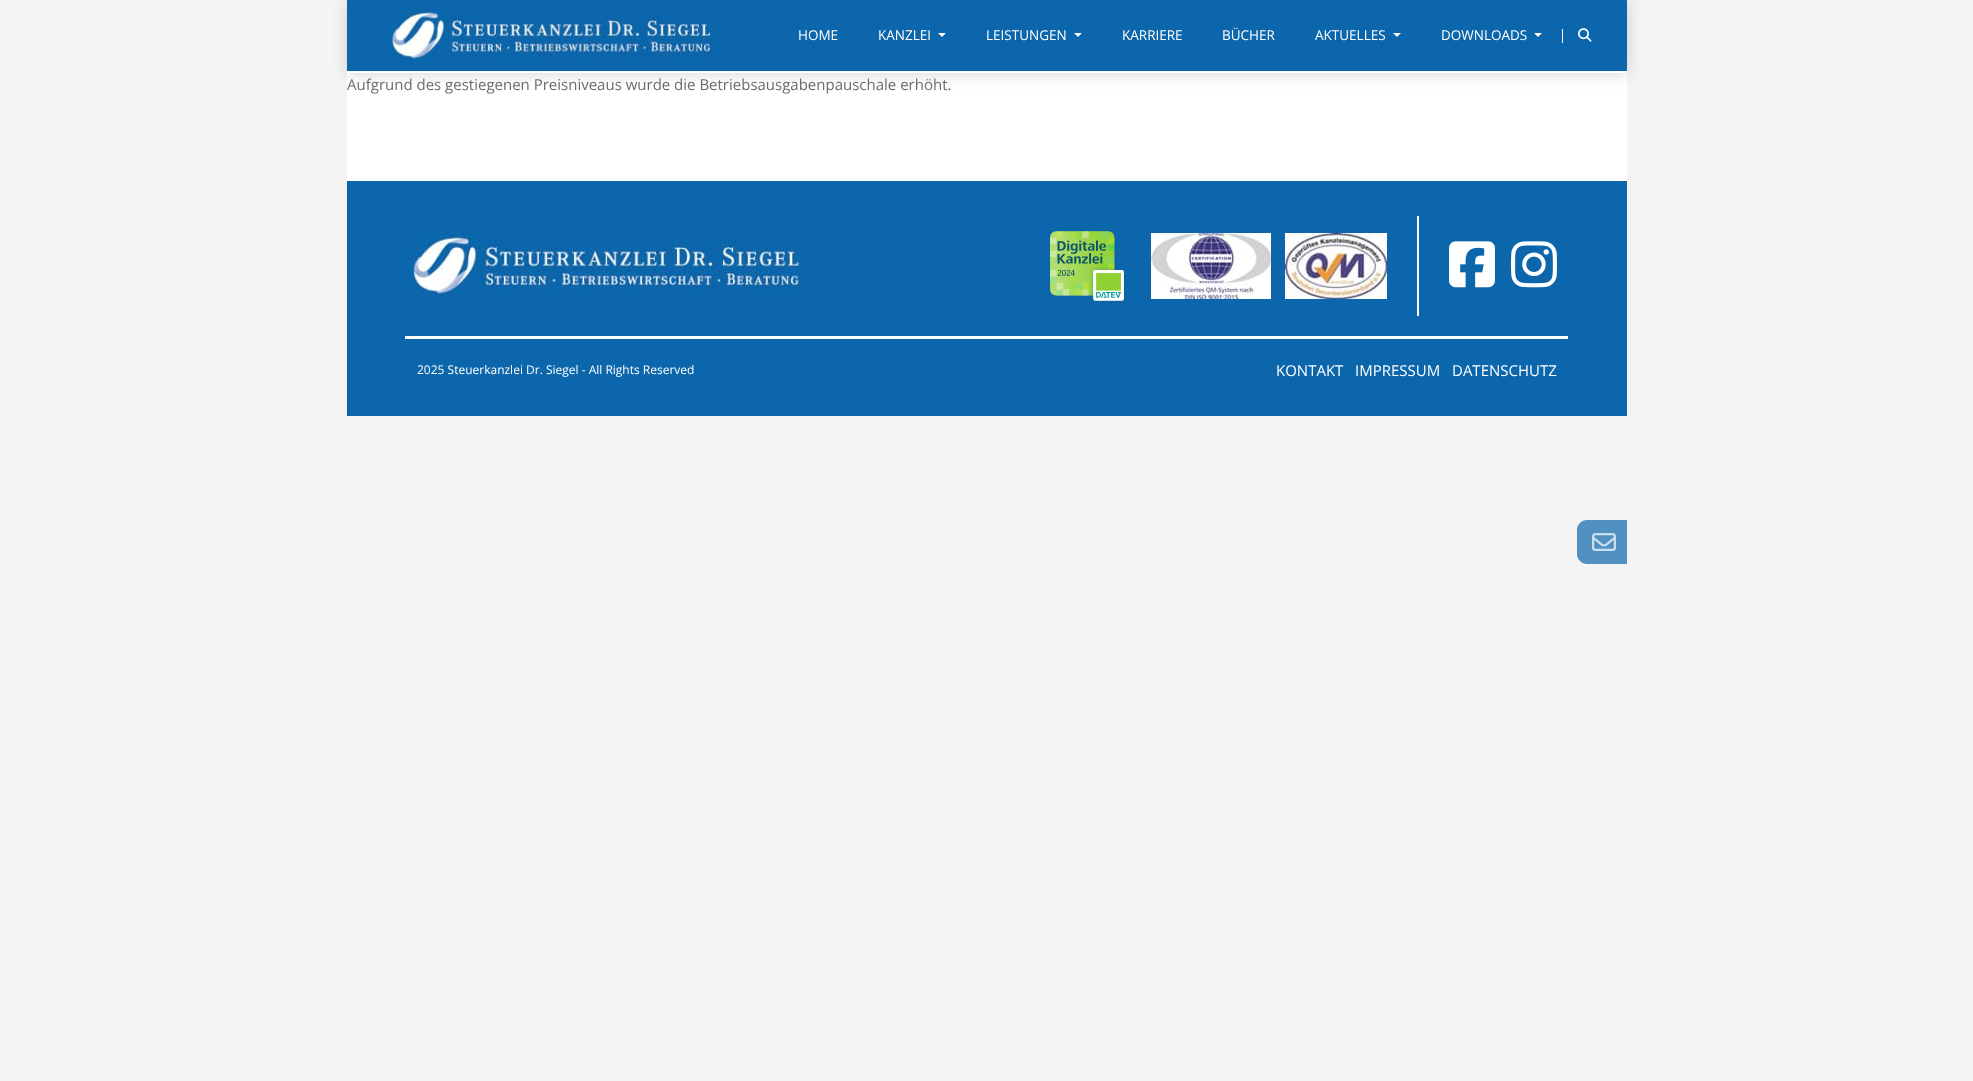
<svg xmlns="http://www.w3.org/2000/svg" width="1973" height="1081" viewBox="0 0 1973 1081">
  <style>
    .t1 { font: 13.5px Open Sans; fill: #fff; }
    .t2 { font: 15px Open Sans; fill: #6c6c6c; }
    .t3 { font: 12px Open Sans; fill: #fff; }
    .t4 { font: 15px Open Sans; fill: #fff; }
  </style>
  <rect width="100%" height="100%" fill="#f4f4f4"/>
  <rect x="347" y="73" width="1280" height="108" fill="#fff"/>
  <rect x="347" y="1" width="1280" height="73" fill="#00000029" filter="blur(8px)"/>
  <rect x="347" y="0" width="1280" height="71" fill="#0b66ac"/>
  <rect x="347" y="71" width="1280" height="2" fill="#fff"/>
  <image x="386" y="9" width="329" height="53" href="images/1.png"/>
  <text x="798" y="40" class="t1">HOME</text>
  <text x="878" y="40" class="t1">KANZLEI</text>
  <path d="M938 33H946L942 37Z" fill="#fff"/>
  <text x="986" y="40" class="t1">LEISTUNGEN</text>
  <path d="M1074 33H1082L1078 37Z" fill="#fff"/>
  <text x="1122" y="40" class="t1">KARRIERE</text>
  <text x="1222" y="40" class="t1">BÜCHER</text>
  <text x="1315" y="40" class="t1">AKTUELLES</text>
  <path d="M1393 33H1401L1397 37Z" fill="#fff"/>
  <text x="1441" y="40" class="t1">DOWNLOADS</text>
  <path d="M1534 33H1542L1538 37Z" fill="#fff"/>
  <rect x="1562" y="29" width="1" height="14" fill="#fff"/>
  <image x="1578" y="28" width="14" height="14" href="images/2.png"/>
  <text x="347" y="90" class="t2">Aufgrund des gestiegenen Preisniveaus wurde die Betriebsausgabenpauschale erhöht.</text>
  <rect x="347" y="181" width="1280" height="235" fill="#0b66ac"/>
  <rect x="405" y="336" width="1163" height="3" fill="#fff"/>
  <image x="406" y="233" width="398" height="65" href="images/3.png"/>
  <rect x="1417" y="216" width="2" height="100" fill="#fff"/>
  <image x="1048" y="230" width="78" height="73" href="images/4.png"/>
  <image x="1151" y="233" width="120" height="66" href="images/5.png"/>
  <image x="1285" y="233" width="102" height="66" href="images/6.png"/>
  <image x="1449" y="241" width="46" height="47" href="images/7.png"/>
  <image x="1511" y="241" width="46" height="47" href="images/8.png"/>
  <text x="417" y="374" class="t3">2025 Steuerkanzlei Dr. Siegel - All Rights Reserved</text>
  <text x="1276" y="376" class="t4">KONTAKT</text>
  <text x="1355" y="376" class="t4">IMPRESSUM</text>
  <text x="1452" y="376" class="t4">DATENSCHUTZ</text>
  <path d="M1587 520H1627V564H1587C1581.5 564 1577 559.5 1577 554V530C1577 524.5 1581.5 520 1587 520Z" fill="#5191c2"/>
  <image x="1592" y="533" width="24" height="18" href="images/9.png"/>
</svg>
